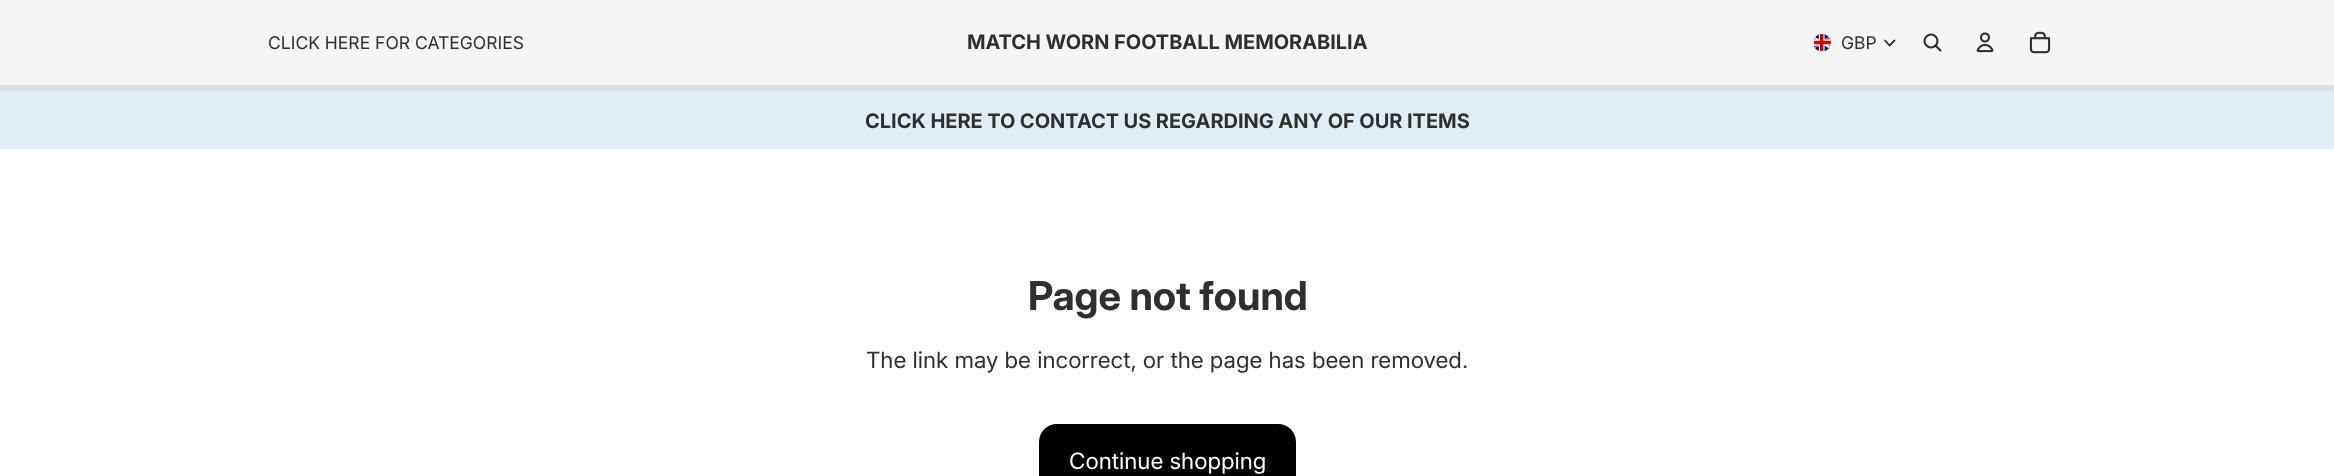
<svg xmlns="http://www.w3.org/2000/svg" width="2334" height="476" viewBox="0 0 2334 476">
  <style>
    .t1 { font: 17.5px Inter; fill: #2f2f2f; }
    .t2 { font: bold 20px Inter; fill: #2f2f2f; }
    .t3 { font: bold 20px 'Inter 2'; fill: #2f2f2f; }
    .t4 { font: bold 40px 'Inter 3'; fill: #2f2f2f; }
    .t5 { font: 22.5px 'Inter 2'; fill: #2f2f2f; }
    .t6 { font: 22.5px 'Inter 2'; fill: #fff; }
  </style>
  <rect width="100%" height="100%" fill="#fff"/>
  <rect x="0" y="0" width="2334" height="85" fill="#f5f5f5"/>
  <rect x="0" y="85" width="2334" height="6" fill="#dfdfdf"/>
  <text x="268" y="49" class="t1">CLICK HERE FOR CATEGORIES</text>
  <text x="967" y="49" class="t2">MATCH WORN FOOTBALL MEMORABILIA</text>
  <image x="1814" y="34" width="17" height="17" href="images/1.png"/>
  <text x="1841" y="49" class="t1">GBP</text>
  <path d="M1894.5 40.5L1889.5 45.5L1885 40.5" fill="none" stroke="#2f2f2f" stroke-width="1.8" stroke-linecap="round" stroke-linejoin="round"/>
  <circle cx="1931" cy="41" r="6.5" fill="none" stroke="#2f2f2f" stroke-width="2.1"/>
  <path d="M1936 46L1940.5 50.5" fill="none" stroke="#000000cf" stroke-width="2.1" stroke-linecap="round" stroke-linejoin="round"/>
  <image x="1976" y="32" width="18" height="21" href="images/2.png"/>
  <image x="2029" y="31" width="22" height="23" href="images/3.png"/>
  <rect x="0" y="91" width="2334" height="58" fill="#e1edf5"/>
  <text x="865" y="128" word-spacing="-0.25" class="t3">CLICK HERE TO CONTACT US REGARDING ANY OF OUR ITEMS</text>
  <text x="1028" y="310" class="t4">Page not found</text>
  <text x="866" y="368" class="t5">The link may be incorrect, or the page has been removed.</text>
  <rect x="1039" y="424" width="257" height="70" rx="18" fill="#000"/>
  <text x="1069" y="469" class="t6">Continue shopping</text>
</svg>
